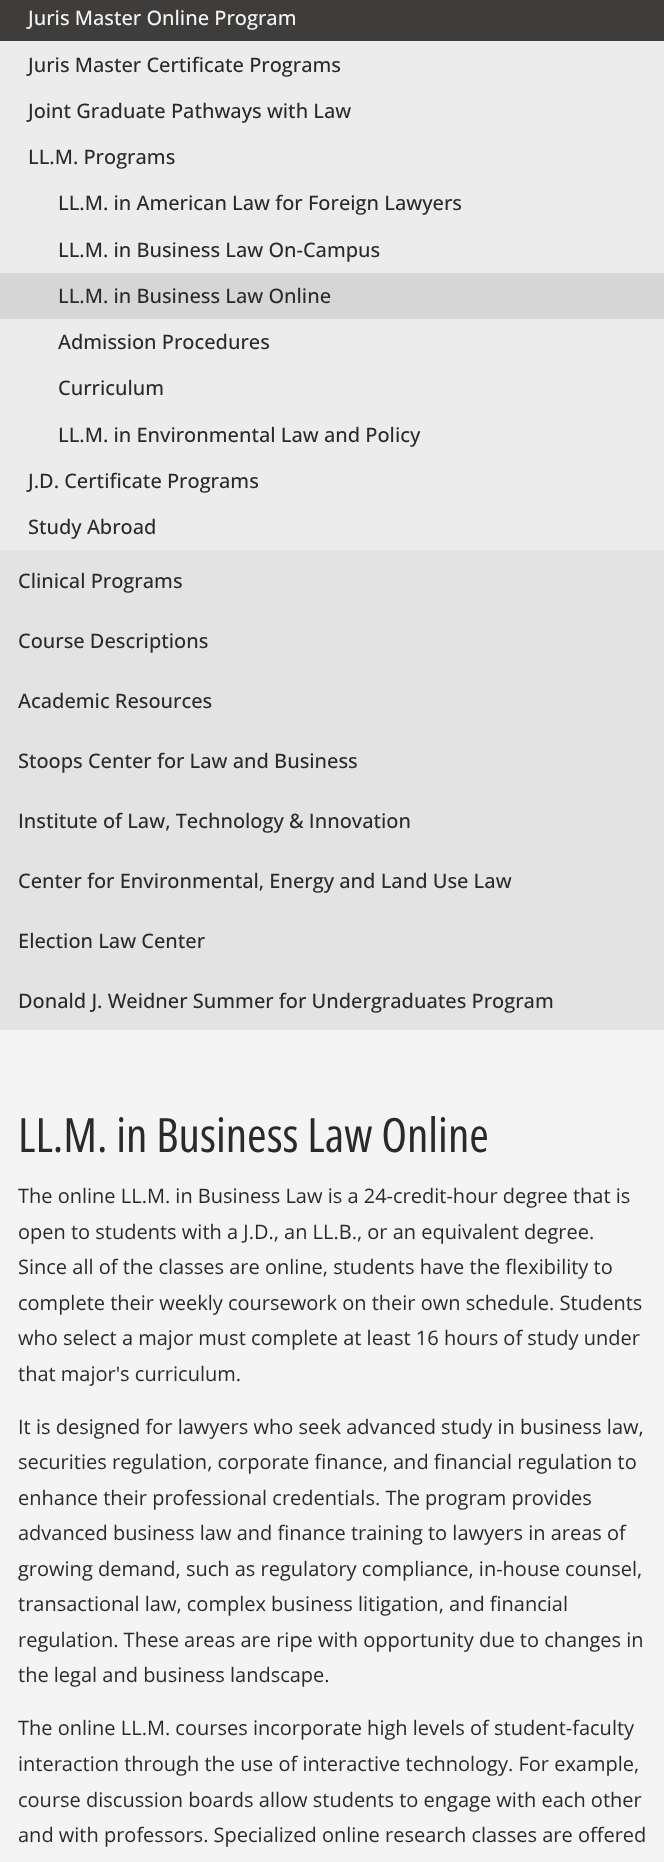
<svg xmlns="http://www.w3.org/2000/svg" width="664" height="1862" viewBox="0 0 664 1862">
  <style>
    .t1 { font: 500 20px Open Sans; fill: #f4f4f4; }
    .t2 { font: 500 20px Open Sans; fill: #2c2a29; }
    .t3 { font: 47.4px Open Sans; fill: #2c2a29; }
    .t4 { font: 20px 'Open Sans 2'; fill: #2c2a29; }
  </style>
  <rect width="100%" height="100%" fill="#f4f4f4"/>
  <rect x="0" y="0" width="664" height="41" fill="#3f3d3c"/>
  <text x="28" y="25" class="t1">Juris Master Online Program</text>
  <rect x="0" y="41" width="664" height="232" fill="#ececec"/>
  <text x="28" y="72" class="t2">Juris Master Certificate Programs</text>
  <text x="28" y="118" class="t2">Joint Graduate Pathways with Law</text>
  <text x="28" y="164" class="t2">LL.M. Programs</text>
  <text x="58" y="210" class="t2">LL.M. in American Law for Foreign Lawyers</text>
  <text x="58" y="257" class="t2">LL.M. in Business Law On-Campus</text>
  <rect x="0" y="273" width="664" height="46" fill="#d6d6d6"/>
  <text x="58" y="303" class="t2">LL.M. in Business Law Online</text>
  <rect x="0" y="319" width="664" height="92" fill="#ececec"/>
  <text x="58" y="349" class="t2">Admission Procedures</text>
  <text x="58" y="395" class="t2">Curriculum</text>
  <rect x="0" y="411" width="664" height="139" fill="#ececec"/>
  <text x="58" y="442" class="t2">LL.M. in Environmental Law and Policy</text>
  <text x="28" y="488" class="t2">J.D. Certificate Programs</text>
  <text x="28" y="534" class="t2">Study Abroad</text>
  <rect x="0" y="550" width="664" height="480" fill="#e3e3e3"/>
  <text x="18" y="588" class="t2">Clinical Programs</text>
  <text x="18" y="648" class="t2">Course Descriptions</text>
  <text x="18" y="708" class="t2">Academic Resources</text>
  <text x="18" y="768" class="t2">Stoops Center for Law and Business</text>
  <text x="18" y="828" class="t2">Institute of Law, Technology &amp; Innovation</text>
  <text x="18" y="888" class="t2">Center for Environmental, Energy and Land Use Law</text>
  <text x="18" y="948" class="t2">Election Law Center</text>
  <text x="18" y="1008" class="t2">Donald J. Weidner Summer for Undergraduates Program</text>
  <text x="18" y="1152" class="t3">LL.M. in Business Law Online</text>
  <text x="18" y="1203" class="t4">The online LL.M. in Business Law is a 24-credit-hour degree that is</text>
  <text x="18" y="1239" class="t4">open to students with a J.D., an LL.B., or an equivalent degree.</text>
  <text x="18" y="1274" class="t4">Since all of the classes are online, students have the flexibility to</text>
  <text x="18" y="1310" class="t4">complete their weekly coursework on their own schedule. Students</text>
  <text x="18" y="1345" class="t4">who select a major must complete at least 16 hours of study under</text>
  <text x="18" y="1381" class="t4">that major's curriculum.</text>
  <text x="18" y="1434" class="t4">It is designed for lawyers who seek advanced study in business law,</text>
  <text x="18" y="1469" class="t4">securities regulation, corporate finance, and financial regulation to</text>
  <text x="18" y="1505" class="t4">enhance their professional credentials. The program provides</text>
  <text x="18" y="1540" class="t4">advanced business law and finance training to lawyers in areas of</text>
  <text x="18" y="1576" class="t4">growing demand, such as regulatory compliance, in-house counsel,</text>
  <text x="18" y="1611" class="t4">transactional law, complex business litigation, and financial</text>
  <text x="18" y="1647" class="t4">regulation. These areas are ripe with opportunity due to changes in</text>
  <text x="18" y="1682" class="t4">the legal and business landscape.</text>
  <text x="18" y="1735" class="t4">The online LL.M. courses incorporate high levels of student-faculty</text>
  <text x="18" y="1771" class="t4">interaction through the use of interactive technology. For example,</text>
  <text x="18" y="1807" class="t4">course discussion boards allow students to engage with each other</text>
  <text x="18" y="1842" class="t4">and with professors. Specialized online research classes are offered</text>
</svg>
